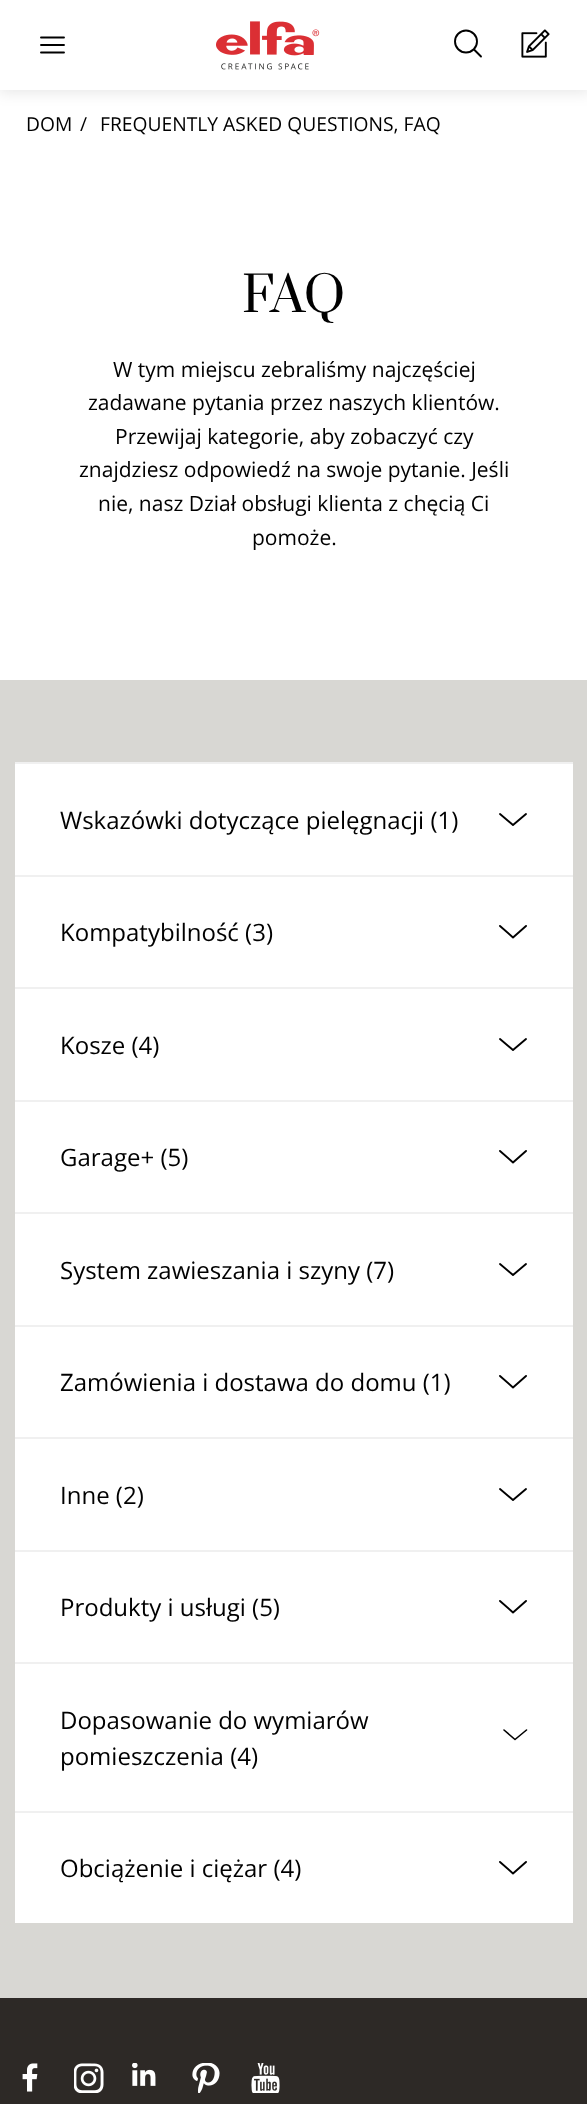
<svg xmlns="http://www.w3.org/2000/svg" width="587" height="2104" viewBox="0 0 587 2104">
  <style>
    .t1 { font: 19.25px Open Sans; fill: #000; }
    .t2 { font: 48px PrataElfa; fill: #000; }
    .t3 { font: 21px Open Sans; fill: #000; }
    .t4 { font: 24px Open Sans; fill: #000; }
  </style>
  <rect width="100%" height="100%" fill="#fff"/>
  <rect x="-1" y="-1" width="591" height="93" fill="#0000001a" filter="blur(7.5px)"/>
  <rect x="0" y="0" width="587" height="90" fill="#fff"/>
  <path d="M41 37.5H64M41 45H64M41 52.5H64" fill="none" stroke="#000" stroke-width="1.9" stroke-linecap="round" stroke-linejoin="round"/>
  <image x="216" y="21" width="104" height="49" href="images/1.png"/>
  <circle cx="466" cy="41.5" r="11" fill="none" stroke="#000" stroke-width="1.9"/>
  <path d="M474.5 50L481 56.5" fill="none" stroke="#000" stroke-width="1.9" stroke-linecap="round" stroke-linejoin="round"/>
  <image x="521" y="29" width="29" height="29" href="images/2.png"/>
  <text x="26" y="131" class="t1">DOM</text>
  <text x="80" y="131" class="t1">/</text>
  <text x="100" y="131" class="t1">FREQUENTLY ASKED QUESTIONS, FAQ</text>
  <text x="242" y="312" class="t2">FAQ</text>
  <text x="113" y="377" class="t3">W tym miejscu zebraliśmy najczęściej</text>
  <text x="88" y="410" class="t3">zadawane pytania przez naszych klientów.</text>
  <text x="115" y="444" class="t3">Przewijaj kategorie, aby zobaczyć czy</text>
  <text x="79" y="477" class="t3">znajdziesz odpowiedź na swoje pytanie. Jeśli</text>
  <text x="98" y="511" class="t3">nie, nasz Dział obsługi klienta z chęcią Ci</text>
  <text x="252" y="545" class="t3">pomoże.</text>
  <rect x="0" y="680" width="587" height="1318" fill="#d8d7d3"/>
  <rect x="15" y="764" width="558" height="111" fill="#fff"/>
  <rect x="15" y="762" width="558" height="2" fill="#f0f0f0"/>
  <text x="60" y="829" class="t4">Wskazówki dotyczące pielęgnacji (1)</text>
  <path d="M526 814L513 825L500 814" fill="none" stroke="#000" stroke-width="1.9" stroke-linecap="round" stroke-linejoin="round"/>
  <rect x="15" y="877" width="558" height="110" fill="#fff"/>
  <rect x="15" y="875" width="558" height="2" fill="#f0f0f0"/>
  <text x="60" y="941" class="t4">Kompatybilność (3)</text>
  <path d="M526 926L513 937.5L500 926" fill="none" stroke="#000" stroke-width="1.9" stroke-linecap="round" stroke-linejoin="round"/>
  <rect x="15" y="989" width="558" height="111" fill="#fff"/>
  <rect x="15" y="987" width="558" height="2" fill="#f0f0f0"/>
  <text x="60" y="1054" class="t4">Kosze (4)</text>
  <path d="M526 1039L513 1050L500 1039" fill="none" stroke="#000" stroke-width="1.9" stroke-linecap="round" stroke-linejoin="round"/>
  <rect x="15" y="1102" width="558" height="110" fill="#fff"/>
  <rect x="15" y="1100" width="558" height="2" fill="#f0f0f0"/>
  <text x="60" y="1166" class="t4">Garage+ (5)</text>
  <path d="M526 1151L513 1162.5L500 1151" fill="none" stroke="#000" stroke-width="1.9" stroke-linecap="round" stroke-linejoin="round"/>
  <rect x="15" y="1214" width="558" height="111" fill="#fff"/>
  <rect x="15" y="1212" width="558" height="2" fill="#f0f0f0"/>
  <text x="60" y="1279" class="t4">System zawieszania i szyny (7)</text>
  <path d="M526 1264L513 1275L500 1264" fill="none" stroke="#000" stroke-width="1.9" stroke-linecap="round" stroke-linejoin="round"/>
  <rect x="15" y="1327" width="558" height="110" fill="#fff"/>
  <rect x="15" y="1325" width="558" height="2" fill="#f0f0f0"/>
  <text x="60" y="1391" class="t4">Zamówienia i dostawa do domu (1)</text>
  <path d="M526 1376L513 1387.5L500 1376" fill="none" stroke="#000" stroke-width="1.9" stroke-linecap="round" stroke-linejoin="round"/>
  <rect x="15" y="1439" width="558" height="111" fill="#fff"/>
  <rect x="15" y="1437" width="558" height="2" fill="#f0f0f0"/>
  <text x="60" y="1504" class="t4">Inne (2)</text>
  <path d="M526 1489L513 1500L500 1489" fill="none" stroke="#000" stroke-width="1.9" stroke-linecap="round" stroke-linejoin="round"/>
  <rect x="15" y="1552" width="558" height="110" fill="#fff"/>
  <rect x="15" y="1550" width="558" height="2" fill="#f0f0f0"/>
  <text x="60" y="1616" class="t4">Produkty i usługi (5)</text>
  <path d="M526 1601L513 1612.5L500 1601" fill="none" stroke="#000" stroke-width="1.9" stroke-linecap="round" stroke-linejoin="round"/>
  <rect x="15" y="1664" width="558" height="147" fill="#fff"/>
  <rect x="15" y="1662" width="558" height="2" fill="#f0f0f0"/>
  <text x="60" y="1729" class="t4">Dopasowanie do wymiarów</text>
  <text x="60" y="1765" class="t4">pomieszczenia (4)</text>
  <path d="M526.5 1730L515 1739.5L504 1730" fill="none" stroke="#000" stroke-width="1.6" stroke-linecap="round" stroke-linejoin="round"/>
  <rect x="15" y="1813" width="558" height="110" fill="#fff"/>
  <rect x="15" y="1811" width="558" height="2" fill="#f0f0f0"/>
  <text x="60" y="1877" class="t4">Obciążenie i ciężar (4)</text>
  <path d="M526 1862L513 1873.5L500 1862" fill="none" stroke="#000" stroke-width="1.9" stroke-linecap="round" stroke-linejoin="round"/>
  <rect x="0" y="1998" width="587" height="106" fill="#2d2926"/>
  <image x="22" y="2063" width="16" height="29" href="images/3.png"/>
  <image x="74" y="2063" width="30" height="30" href="images/4.png"/>
  <image x="132" y="2063" width="24" height="23" href="images/5.png"/>
  <image x="192" y="2063" width="28" height="30" href="images/6.png"/>
  <image x="251" y="2063" width="29" height="30" href="images/7.png"/>
</svg>
